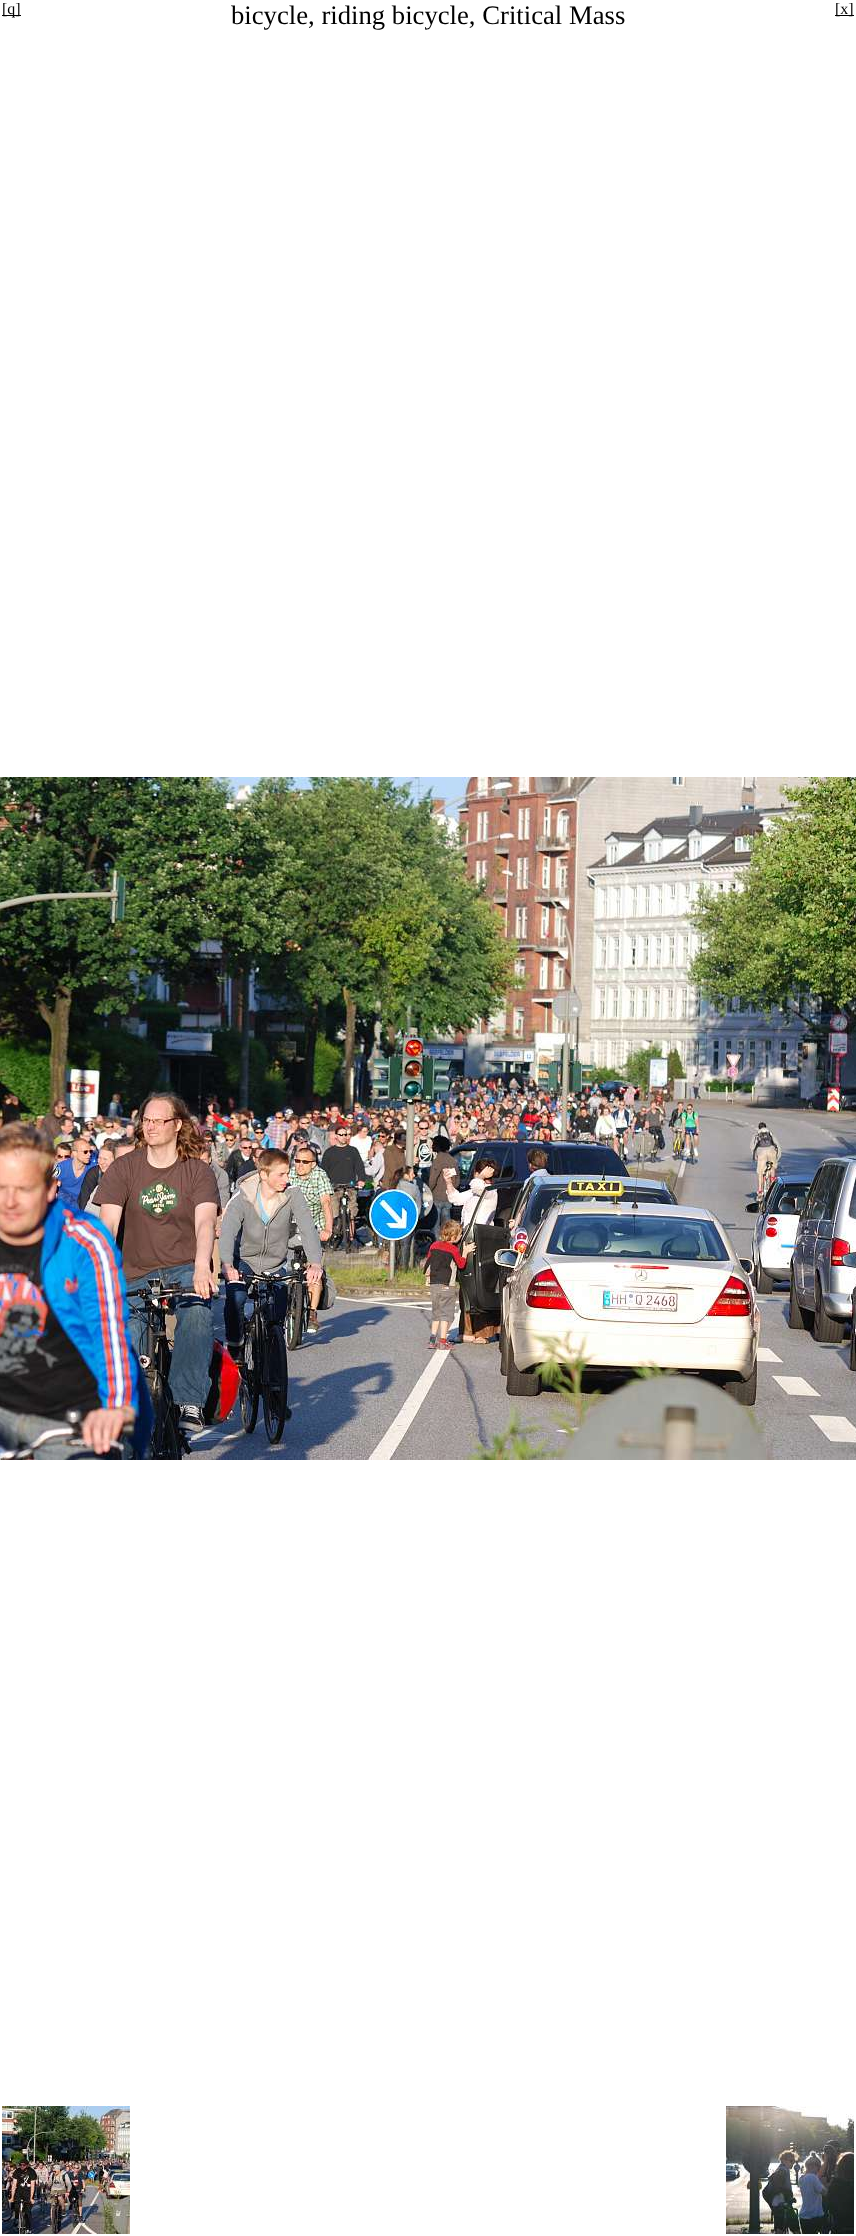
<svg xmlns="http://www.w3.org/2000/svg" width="856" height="2236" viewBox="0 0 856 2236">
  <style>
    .t1 { font: 16px Liberation Serif; fill: #000; }
    .t2 { font: 26.7px Liberation Serif; fill: #000; }
  </style>
  <rect width="100%" height="100%" fill="#fff"/>
  <rect x="2" y="15" width="19" height="1" fill="#000"/>
  <text x="2" y="14" class="t1">[q]</text>
  <text x="231" y="24" class="t2">bicycle, riding bicycle, Critical Mass</text>
  <image x="426" y="29" width="3" height="1" href="images/1.png"/>
  <rect x="835" y="15" width="19" height="1" fill="#000"/>
  <text x="835" y="14" class="t1">[x]</text>
  <image x="0" y="777" width="856" height="683" href="images/2.png"/>
  <image x="2" y="2106" width="128" height="128" href="images/3.png"/>
  <image x="726" y="2106" width="128" height="128" href="images/4.png"/>
</svg>
